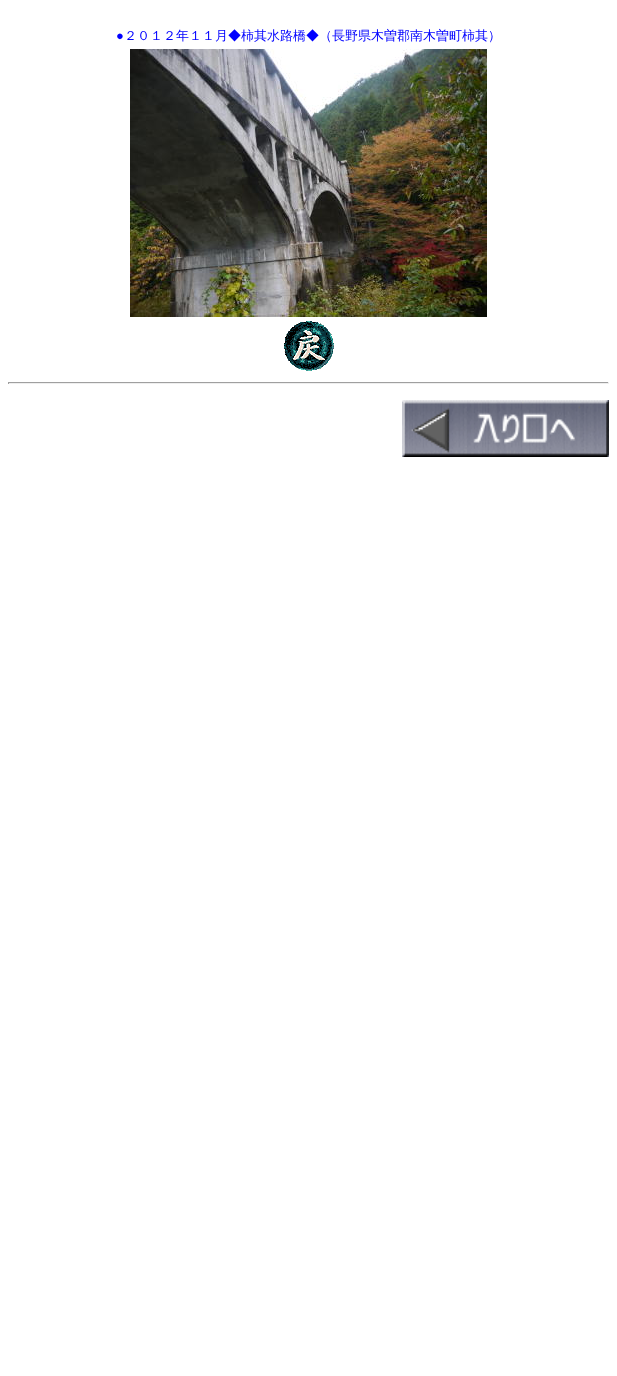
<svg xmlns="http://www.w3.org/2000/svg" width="617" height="1376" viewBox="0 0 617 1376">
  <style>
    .t1 { font: 13px Liberation Serif; fill: #00f; }
    .t2 { font: 500 13px WenQuanYi Zen Hei; fill: #00f; }
  </style>
  <rect width="100%" height="100%" fill="#fff"/>
  <text x="116" y="40" class="t1">●</text>
  <text x="124" y="40" class="t2">２０１２年１１月◆柿其水路橋◆（長野県木曽郡南木曽町柿其）</text>
  <image x="130" y="49" width="357" height="268" href="images/1.png"/>
  <image x="284" y="321" width="50" height="50" href="images/2.png"/>
  <rect x="8" y="382" width="601" height="1" fill="#9f9f9f"/>
  <rect x="608" y="382" width="1" height="2" fill="#eee"/>
  <rect x="8" y="383" width="601" height="1" fill="#eee"/>
  <rect x="8" y="382" width="1" height="2" fill="#9f9f9f"/>
  <image x="402" y="400" width="207" height="57" href="images/3.png"/>
</svg>
